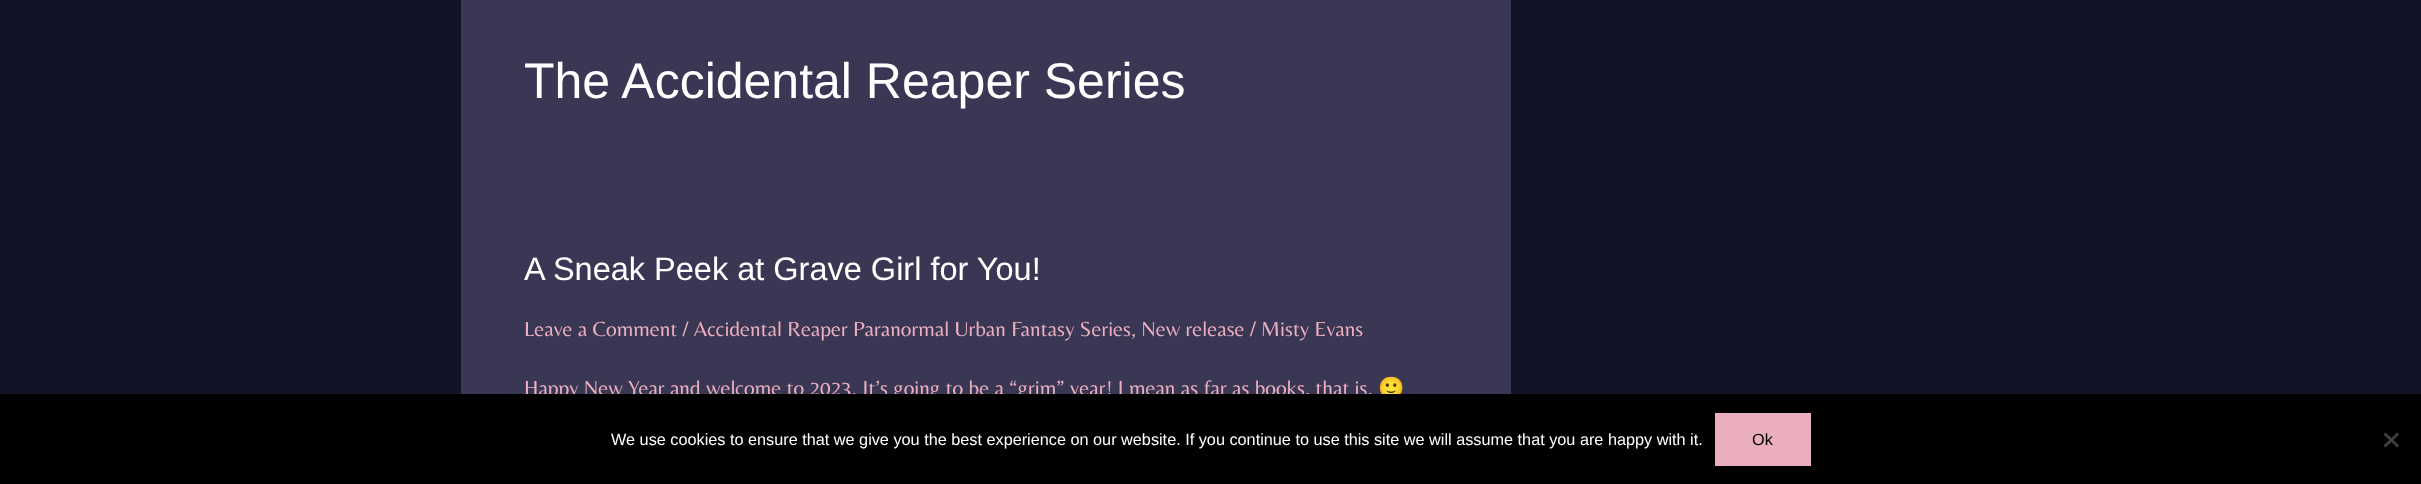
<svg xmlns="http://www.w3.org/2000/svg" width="2421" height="484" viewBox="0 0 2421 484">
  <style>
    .t1 { font: 50px Liberation Sans; fill: #fff; }
    .t2 { font: 32.5px Liberation Sans; fill: #fff; }
    .t3 { font: 21.25px Belleza; fill: #ebaebf; }
    .t4 { font: 21.25px Noto Color Emoji; fill: #ebaebf; }
    .t5 { font: 16.25px Liberation Sans; fill: #fff; }
    .t6 { font: 16.25px Liberation Sans; fill: #000; }
  </style>
  <rect width="100%" height="100%" fill="#131327"/>
  <rect x="461" y="0" width="1050" height="394" fill="#3a3754"/>
  <text x="524" y="98" class="t1">The Accidental Reaper Series</text>
  <text x="524" y="280" class="t2">A Sneak Peek at Grave Girl for You!</text>
  <text x="524" y="336" class="t3">Leave a Comment / Accidental Reaper Paranormal Urban Fantasy Series, New release / Misty Evans</text>
  <text x="524" y="395" class="t3">Happy New Year and welcome to 2023. It’s going to be a “grim” year! I mean as far as books, that is.</text>
  <text x="1378" y="395" class="t4">🙂</text>
  <rect x="0" y="394" width="2421" height="90" fill="#000"/>
  <text x="611" y="445" class="t5">We use cookies to ensure that we give you the best experience on our website. If you continue to use this site we will assume that you are happy with it.</text>
  <rect x="1715" y="413" width="96" height="53" fill="#ebaebf"/>
  <text x="1752" y="445" class="t6">Ok</text>
  <path d="M2397 432.5L2399 434.5L2385.5 447.5L2383.5 445.5Z" fill="#404040"/>
  <path d="M2383.5 434.5L2385.5 432.5L2399 445.5L2397 447.5Z" fill="#404040"/>
</svg>
